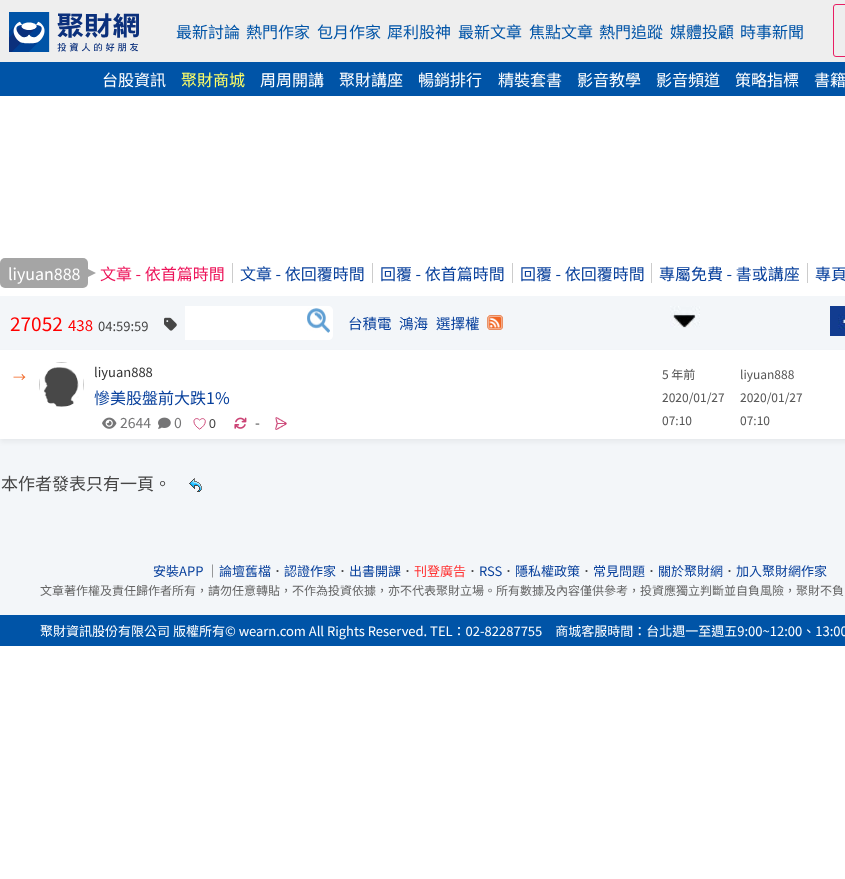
<svg xmlns="http://www.w3.org/2000/svg" width="845" height="879" viewBox="0 0 845 879">
  <style>
    .t1 { font: 16px Noto Sans TC; fill: #0054a7; }
    .t2 { font: 16px Noto Sans TC; fill: #fff; }
    .t3 { font: 16px Noto Sans TC; fill: #ff6; }
    .t4 { font: 16px Noto Sans TC; fill: #ed145a; }
    .t5 { font: 16px Noto Sans TC; fill: #08409c; }
    .t6 { font: 19px Noto Sans TC; fill: #f00; }
    .t7 { font: 15px Noto Sans TC; fill: #f00; }
    .t8 { font: 13px Noto Sans TC; fill: #464646; }
    .t9 { font: 14.5px Noto Sans TC; fill: #08409c; }
    .t10 { font: 13px Noto Sans TC; fill: #f26522; }
    .t11 { font: 13px Noto Sans TC; fill: #333; }
    .t12 { font: 12px Noto Sans TC; fill: #555; }
    .t13 { font: 14px Noto Sans TC; fill: #757576; }
    .t14 { font: 14px Noto Sans TC; fill: #464646; }
    .t15 { font: 17px Noto Sans TC; fill: #464646; }
    .t16 { font: 13px Noto Sans TC; fill: #08409c; }
    .t17 { font: 13px Noto Sans TC; fill: #f33; }
    .t18 { font: 12px Noto Sans TC; fill: #666; }
    .t19 { font: 13px Noto Sans TC; fill: #fff; }
  </style>
  <rect width="100%" height="100%" fill="#fff"/>
  <rect x="0" y="0" width="845" height="62" fill="#eee"/>
  <image x="9" y="12" width="130" height="40" href="images/1.png"/>
  <text x="176" y="38" class="t1">最新討論</text>
  <text x="246" y="38" class="t1">熱門作家</text>
  <text x="317" y="38" class="t1">包月作家</text>
  <text x="387" y="38" class="t1">犀利股神</text>
  <text x="458" y="38" class="t1">最新文章</text>
  <text x="529" y="38" class="t1">焦點文章</text>
  <text x="599" y="38" class="t1">熱門追蹤</text>
  <text x="670" y="38" class="t1">媒體投顧</text>
  <text x="740" y="38" class="t1">時事新聞</text>
  <rect x="833.5" y="4.5" width="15" height="52" rx="2.5" fill="none" stroke="#e91e63"/>
  <rect x="0" y="62" width="845" height="34" fill="#0054a7"/>
  <text x="102" y="86" class="t2">台股資訊</text>
  <text x="181" y="86" class="t3">聚財商城</text>
  <text x="260" y="86" class="t2">周周開講</text>
  <text x="339" y="86" class="t2">聚財講座</text>
  <text x="418" y="86" class="t2">暢銷排行</text>
  <text x="498" y="86" class="t2">精裝套書</text>
  <text x="577" y="86" class="t2">影音教學</text>
  <text x="656" y="86" class="t2">影音頻道</text>
  <text x="735" y="86" class="t2">策略指標</text>
  <text x="814" y="86" class="t2">書籍</text>
  <rect x="0" y="258" width="88" height="30" rx="5" fill="#a5a5a5"/>
  <text x="8" y="280" class="t2">liyuan888</text>
  <path d="M86 278V268L96 273Z" fill="#a5a5a5"/>
  <rect x="232" y="263" width="1" height="20" fill="#ccc"/>
  <text x="100" y="280" class="t4">文章 - 依首篇時間</text>
  <rect x="372" y="263" width="1" height="20" fill="#ccc"/>
  <text x="240" y="280" class="t5">文章 - 依回覆時間</text>
  <rect x="512" y="263" width="1" height="20" fill="#ccc"/>
  <text x="380" y="280" class="t5">回覆 - 依首篇時間</text>
  <rect x="651" y="263" width="1" height="20" fill="#ccc"/>
  <text x="520" y="280" class="t5">回覆 - 依回覆時間</text>
  <rect x="807" y="263" width="1" height="20" fill="#ccc"/>
  <text x="659" y="280" class="t5">專屬免費 - 書或講座</text>
  <text x="815" y="280" class="t5">專頁</text>
  <rect x="0" y="296" width="845" height="319" fill="#f3f6f9"/>
  <text x="10" y="331" class="t6">27052</text>
  <text x="68" y="331" class="t7">438</text>
  <text x="98" y="331" class="t8">04:59:59</text>
  <image x="164" y="317" width="13" height="14" href="images/2.png"/>
  <rect x="185" y="306" width="120" height="34" fill="#fff"/>
  <path d="M305 306H328C331 306 333 308 333 311V335C333 338 331 340 328 340H305Z" fill="#fff"/>
  <image x="307" y="308" width="23" height="25" href="images/3.png"/>
  <text x="348" y="329" class="t9">台積電</text>
  <text x="399" y="329" class="t9">鴻海</text>
  <text x="436" y="329" class="t9">選擇權</text>
  <image x="487" y="315" width="16" height="15" href="images/4.png"/>
  <image x="670" y="306" width="30" height="22" href="images/5.png"/>
  <image x="830" y="306" width="15" height="30" href="images/6.png"/>
  <rect x="0" y="353" width="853" height="89" fill="#0000000d" filter="blur(2.5px)"/>
  <rect x="0" y="350" width="845" height="89" fill="#fff"/>
  <text x="13" y="382" class="t10">→</text>
  <image x="39" y="362" width="45" height="45" href="images/7.png"/>
  <text x="94" y="377" class="t11">liyuan888</text>
  <text x="662" y="379" class="t12">5 年前</text>
  <text x="662" y="402" class="t12">2020/01/27</text>
  <text x="662" y="425" class="t12">07:10</text>
  <text x="94" y="404" class="t5">慘美股盤前大跌1%</text>
  <image x="102" y="417" width="15" height="12" href="images/8.png"/>
  <text x="120" y="428" class="t13">2644</text>
  <image x="158" y="417" width="13" height="12" href="images/9.png"/>
  <text x="174" y="428" class="t13">0</text>
  <image x="193" y="418" width="23" height="12" href="images/10.png"/>
  <image x="234" y="417" width="13" height="12" href="images/11.png"/>
  <text x="255" y="428" class="t14">-</text>
  <image x="275" y="417" width="12" height="13" href="images/12.png"/>
  <text x="740" y="379" class="t12">liyuan888</text>
  <text x="740" y="402" class="t12">2020/01/27</text>
  <text x="740" y="425" class="t12">07:10</text>
  <text x="1" y="490" class="t15">本作者發表只有一頁。</text>
  <image x="189" y="478" width="13" height="14" href="images/13.png"/>
  <text x="153" y="576" class="t16">安裝APP</text>
  <text x="206" y="576" class="t8">｜</text>
  <text x="219" y="576" class="t16">論壇舊檔</text>
  <text x="271" y="576" class="t8">．</text>
  <text x="284" y="576" class="t16">認證作家</text>
  <text x="336" y="576" class="t8">．</text>
  <text x="349" y="576" class="t16">出書開課</text>
  <text x="401" y="576" class="t8">．</text>
  <text x="414" y="576" class="t17">刊登廣告</text>
  <text x="466" y="576" class="t8">．</text>
  <text x="479" y="576" class="t16">RSS</text>
  <text x="502" y="576" class="t8">．</text>
  <text x="515" y="576" class="t16">隱私權政策</text>
  <text x="580" y="576" class="t8">．</text>
  <text x="593" y="576" class="t16">常見問題</text>
  <text x="645" y="576" class="t8">．</text>
  <text x="658" y="576" class="t16">關於聚財網</text>
  <text x="723" y="576" class="t8">．</text>
  <text x="736" y="576" class="t16">加入聚財網作家</text>
  <text x="40" y="595" class="t18">文章著作權及責任歸作者所有，請勿任意轉貼，不作為投資依據，亦不代表聚財立場。所有數據及內容僅供參考，投資應獨立判斷並自負風險，聚財不負</text>
  <rect x="0" y="615" width="845" height="31" fill="#0054a7"/>
  <text x="40" y="636" class="t19">聚財資訊股份有限公司 版權所有© wearn.com All Rights Reserved. TEL：02-82287755　商城客服時間：台北週一至週五9:00~12:00、13:00</text>
</svg>
